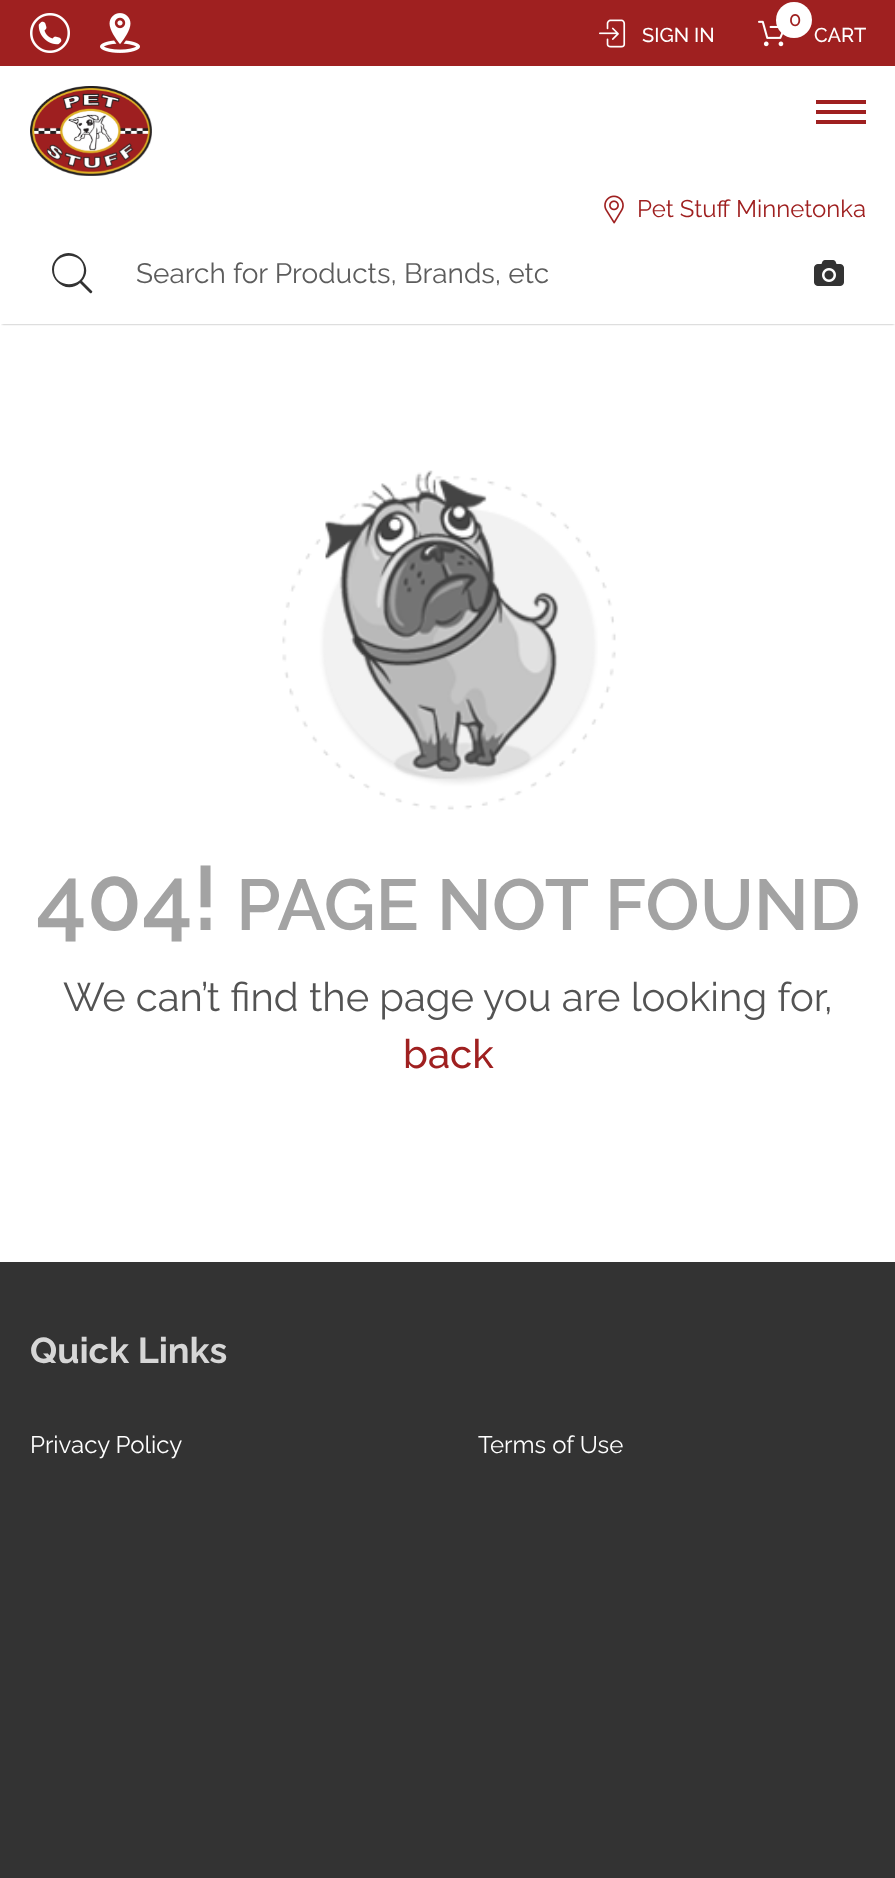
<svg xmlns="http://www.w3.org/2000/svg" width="895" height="1878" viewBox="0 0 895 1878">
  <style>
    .t1 { font: 500 20px Raleway; fill: #fff; }
    .t2 { font: 500 20px Raleway; fill: #9f2020; }
    .t3 { font: 24px Raleway; fill: #9f2020; }
    .t4 { font: 28px Raleway; fill: #5c5c5c; }
    .t5 { font: 600 90px Raleway; fill: #a3a3a3; }
    .t6 { font: 600 72px Raleway; fill: #a3a3a3; }
    .t7 { font: 40px Raleway; fill: #535353; }
    .t8 { font: 500 40px Raleway; fill: #9f2020; }
    .t9 { font: bold 36px Raleway; fill: #d6d6d6; }
    .t10 { font: 24px Raleway; fill: #fff; }
  </style>
  <defs>
    <clipPath id="clip1"><rect x="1" y="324" width="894" height="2"/></clipPath>
  </defs>
  <rect width="100%" height="100%" fill="#fff"/>
  <g clip-path="url(#clip1)">
    <rect x="2" y="4" width="892" height="320" fill="#9d9d9d" filter="blur(1px)"/>
  </g>
  <rect x="0" y="0" width="895" height="66" fill="#9f2020"/>
  <image x="30" y="13" width="40" height="40" href="images/1.png"/>
  <image x="100" y="13" width="40" height="40" href="images/2.png"/>
  <image x="599" y="19" width="27" height="29" href="images/3.png"/>
  <text x="642" y="42" class="t1">SIGN IN</text>
  <image x="758" y="20" width="26" height="27" href="images/4.png"/>
  <circle cx="794" cy="20" r="18" fill="#fff"/>
  <text x="789" y="26" class="t2">0</text>
  <text x="814" y="42" class="t1">CART</text>
  <rect x="816" y="110" width="50" height="4" fill="#9f2020"/>
  <rect x="816" y="100" width="50" height="4" fill="#9f2020"/>
  <rect x="816" y="120" width="50" height="4" fill="#9f2020"/>
  <image x="30" y="86" width="122" height="90" href="images/5.png"/>
  <image x="604" y="195" width="20" height="29" href="images/6.png"/>
  <text x="637" y="217" class="t3">Pet Stuff Minnetonka</text>
  <path d="M92 291C93 292 91 294 90 293L80 283C64 297 42 273 57 258C72 243 96 265 82 281ZM54 270C54 289 84 289 84 270C84 251 54 251 54 270Z" fill="#333"/>
  <text x="136" y="283" class="t4">Search for Products, Brands, etc</text>
  <image x="814" y="260" width="30" height="26" href="images/7.png"/>
  <image x="282" y="470" width="334" height="340" href="images/8.png"/>
  <text x="36" y="930" class="t5">404!</text>
  <text x="236" y="930" class="t6">PAGE NOT FOUND</text>
  <text x="63" y="1011" class="t7">We can’t find the page you are looking for,</text>
  <text x="403" y="1068" class="t8">back</text>
  <rect x="0" y="1262" width="895" height="616" fill="#333"/>
  <text x="30" y="1363" class="t9">Quick Links</text>
  <text x="30" y="1453" class="t10">Privacy Policy</text>
  <text x="478" y="1453" class="t10">Terms of Use</text>
</svg>
